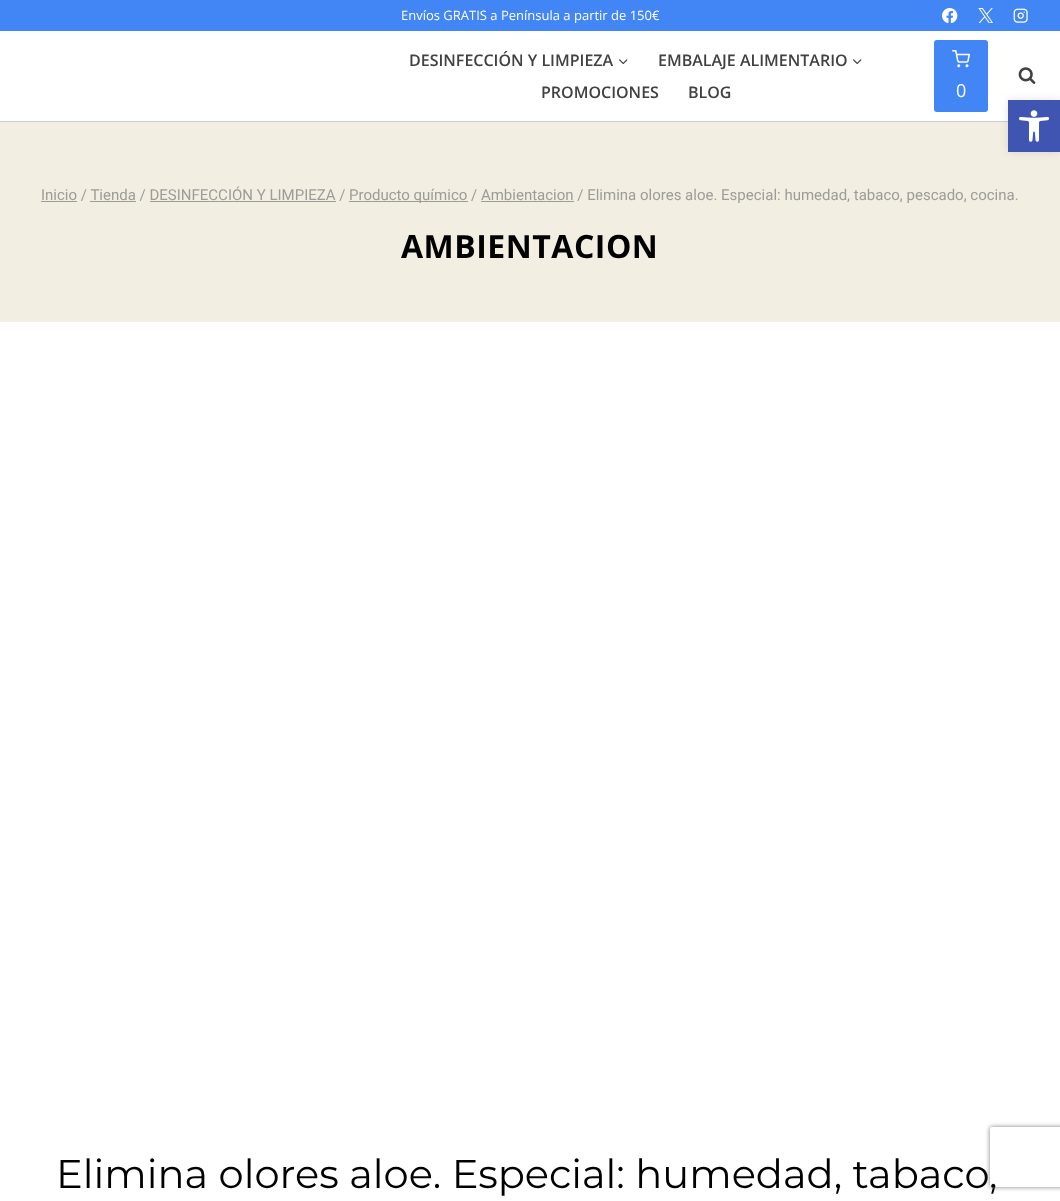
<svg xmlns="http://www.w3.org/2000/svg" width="1060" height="1201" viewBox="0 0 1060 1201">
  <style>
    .t1 { font: 13px Open Sans; fill: #fff; }
    .t2 { font: 600 16px Open Sans; fill: #414141; }
    .t3 { font: 18px Open Sans; fill: #fff; }
    .t4 { font: 15px Roboto; fill: #9d9c97; }
    .t5 { font: bold 32px Open Sans; letter-spacing: 0.5px; fill: #000; }
    .t6 { font: 40px Montserrat; fill: #000; }
  </style>
  <defs>
    <clipPath id="clip1"><path d="M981 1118H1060V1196H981ZM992 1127H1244C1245 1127 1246 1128 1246 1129V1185C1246 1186 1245 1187 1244 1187H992C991 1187 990 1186 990 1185V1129C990 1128 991 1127 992 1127Z" clip-rule="evenodd"/></clipPath>
  </defs>
  <rect width="100%" height="100%" fill="#fff"/>
  <rect x="0" y="0" width="1060" height="31" fill="#4285f4"/>
  <text x="401" y="20" class="t1">Envíos GRATIS a Península a partir de 150€</text>
  <image x="942" y="8" width="16" height="15" href="images/1.png"/>
  <image x="978" y="8" width="15" height="15" href="images/2.png"/>
  <image x="1013" y="8" width="15" height="15" href="images/3.png"/>
  <rect x="0" y="121" width="1008" height="1" fill="#cbcfd3"/>
  <text x="409" y="66" class="t2">DESINFECCIÓN Y LIMPIEZA</text>
  <image x="619" y="59" width="9" height="6" href="images/4.png"/>
  <text x="658" y="66" class="t2">EMBALAJE ALIMENTARIO</text>
  <image x="853" y="59" width="9" height="6" href="images/4.png"/>
  <text x="541" y="98" class="t2">PROMOCIONES</text>
  <text x="688" y="98" class="t2">BLOG</text>
  <image x="1018" y="67" width="18" height="17" href="images/5.png"/>
  <rect x="934" y="40" width="54" height="72" rx="3" fill="#4285f4"/>
  <image x="952" y="50" width="18" height="18" href="images/6.png"/>
  <text x="956" y="97" class="t3">0</text>
  <rect x="0" y="122" width="1060" height="200" fill="#f2eee2"/>
  <text x="41" y="200" class="t4">Inicio / Tienda / DESINFECCIÓN Y LIMPIEZA /</text>
  <rect x="41" y="201" width="36" height="1" fill="#9d9c97"/>
  <rect x="349" y="201" width="119" height="1" fill="#9d9c97"/>
  <text x="349" y="200" class="t4">Producto químico / Ambientacion / Elimina olores aloe. Especial: humedad, tabaco, pescado, cocina.</text>
  <rect x="90" y="201" width="46" height="1" fill="#9d9c97"/>
  <rect x="150" y="201" width="186" height="1" fill="#9d9c97"/>
  <rect x="481" y="201" width="93" height="1" fill="#9d9c97"/>
  <text x="401" y="258" class="t5">AMBIENTACION</text>
  <text x="56" y="1188" class="t6">Elimina olores aloe. Especial: humedad, tabaco,</text>
  <rect x="1008" y="100" width="52" height="52" fill="#0000001a" filter="blur(5px)"/>
  <rect x="1008" y="100" width="52" height="52" fill="#4054b2"/>
  <image x="1019" y="110" width="30" height="32" href="images/7.png"/>
  <g clip-path="url(#clip1)">
    <rect x="990" y="1127" width="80" height="60" rx="2" fill="#808080" filter="blur(2.5px)"/>
  </g>
</svg>
